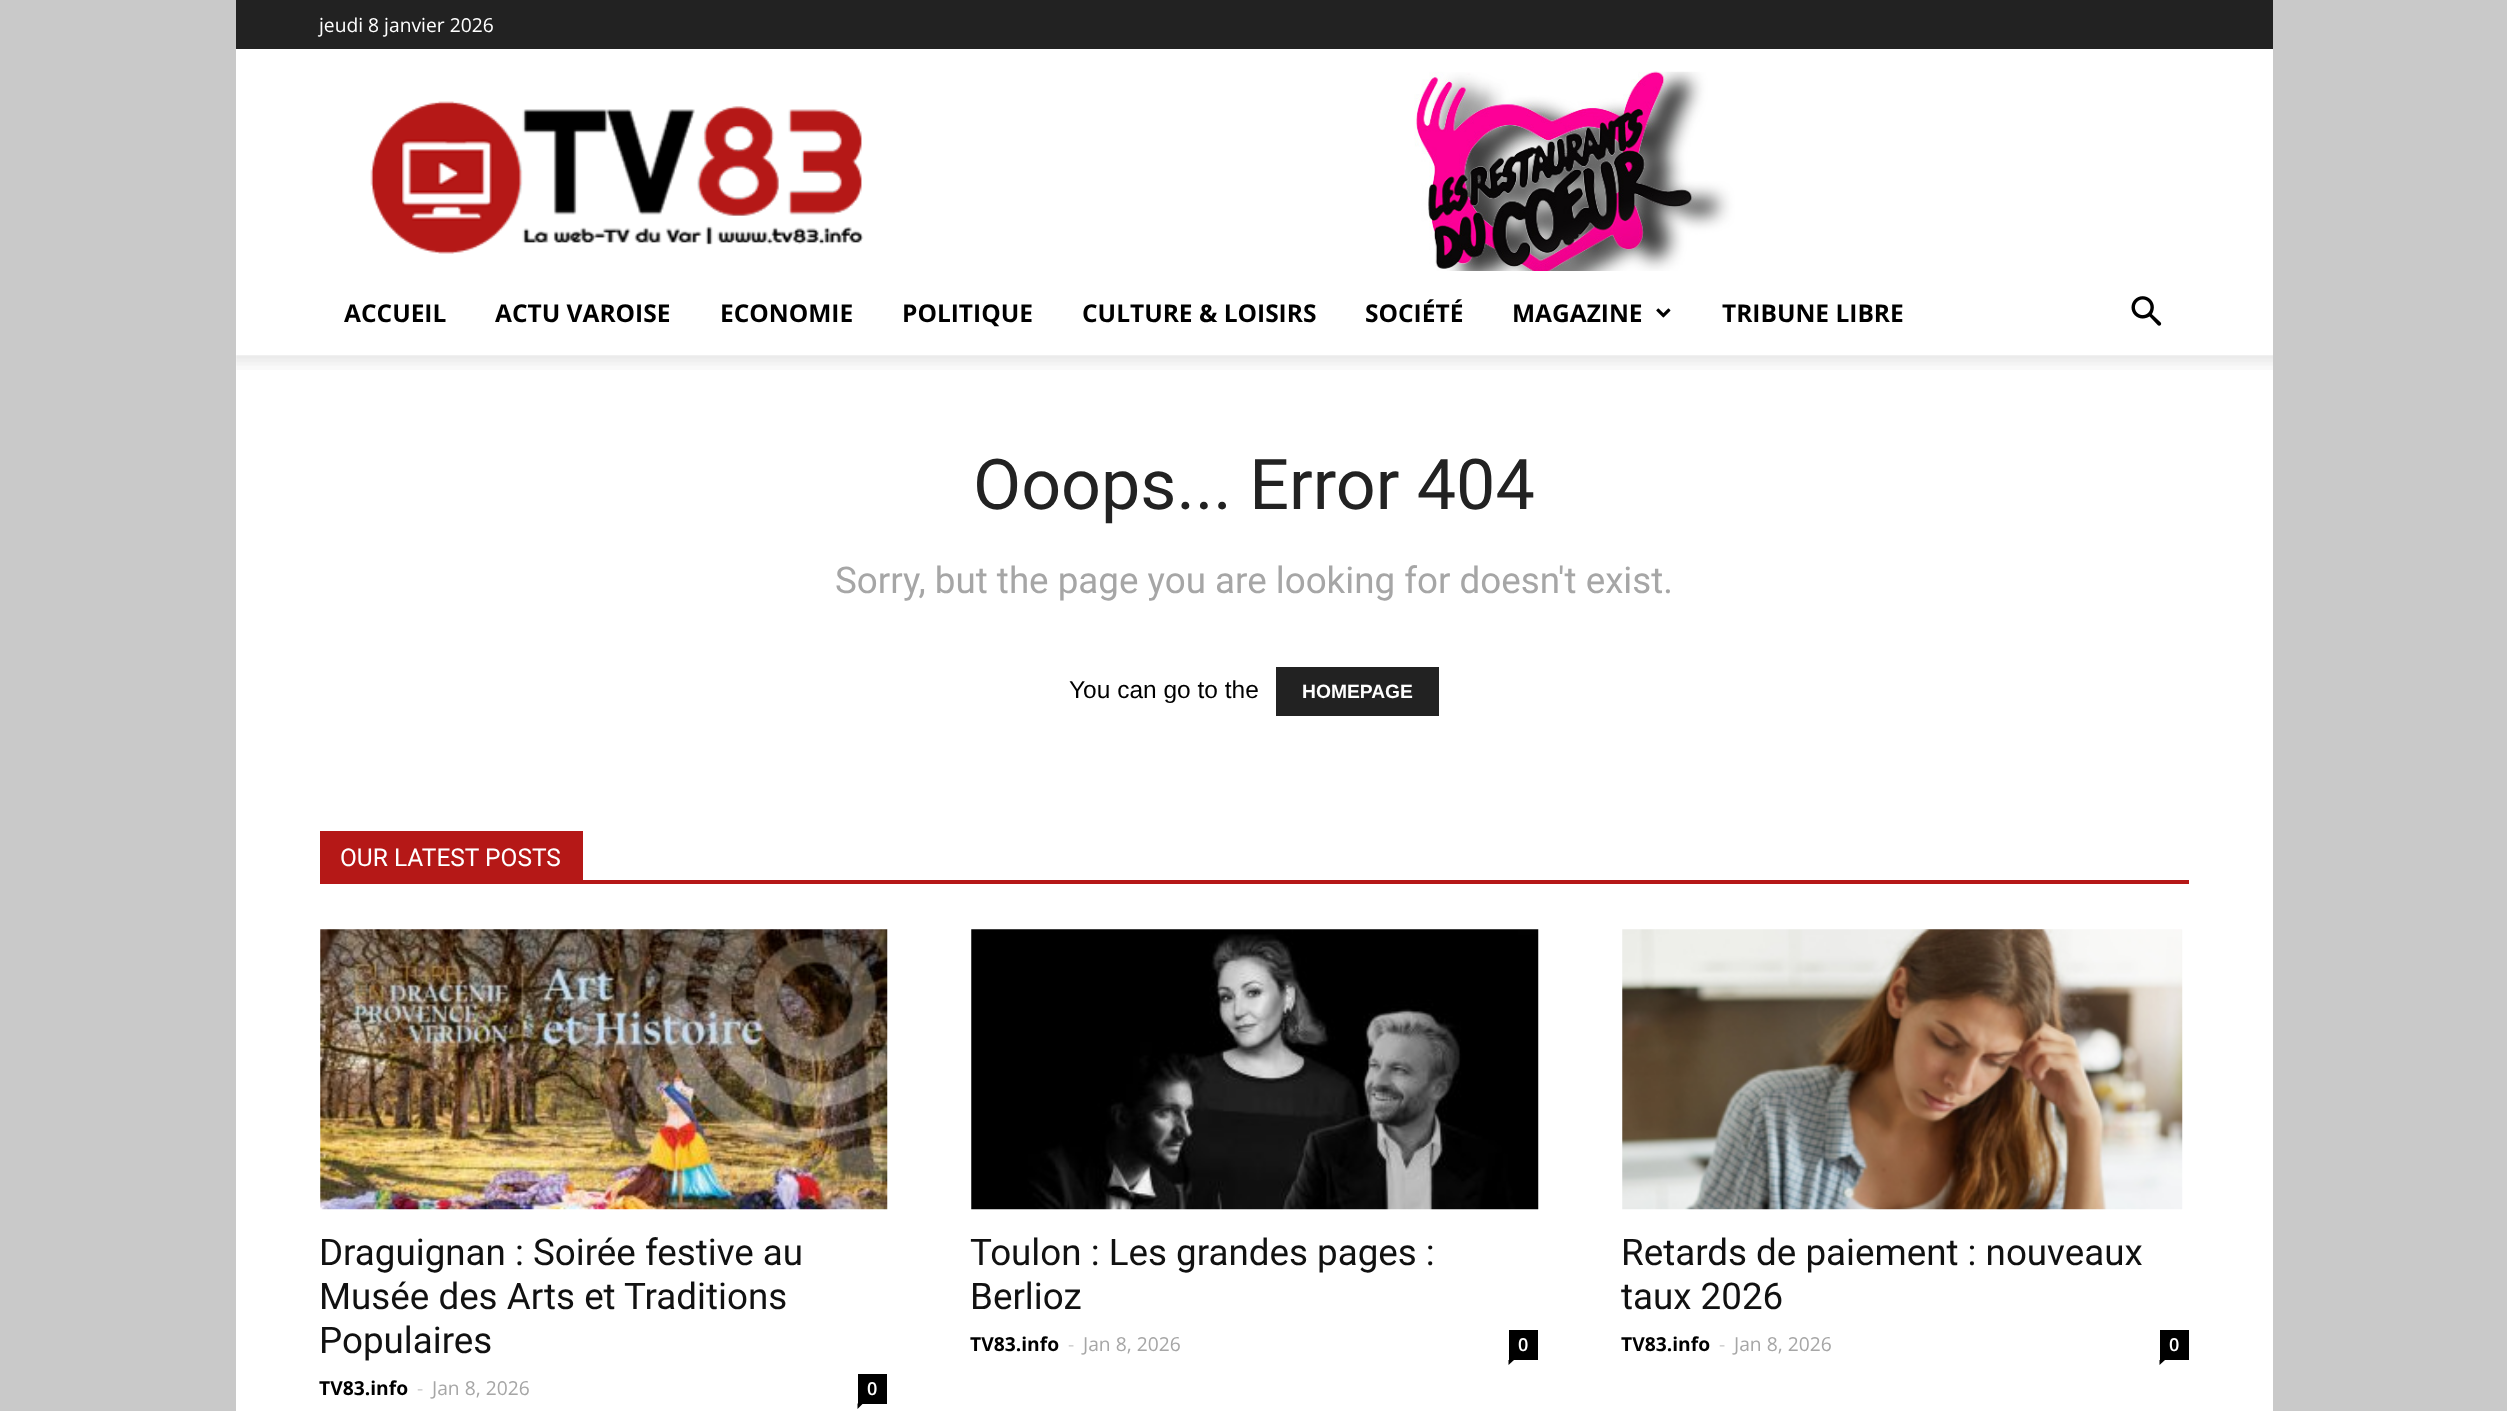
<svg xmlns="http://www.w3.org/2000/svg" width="2507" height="1411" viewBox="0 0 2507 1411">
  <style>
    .t1 { font: 19.25px Open Sans; fill: #fff; }
    .t2 { font: bold 24.5px Open Sans; fill: #000; }
    .t3 { font: 70px Roboto; fill: #222; }
    .t4 { font: 36.75px Roboto; fill: #a6a6a6; }
    .t5 { font: 24.5px Liberation Sans; fill: #000; }
    .t6 { font: bold 19.25px Liberation Sans; fill: #fff; }
    .t7 { font: 24.5px Roboto; fill: #fff; }
    .t8 { font: 36.75px Roboto; fill: #111; }
    .t9 { font: bold 19.25px Open Sans; fill: #000; }
    .t10 { font: 19.25px Open Sans; fill: #ccc; }
    .t11 { font: 19.25px Open Sans; fill: #a6a6a6; }
    .t12 { font: 600 18px Open Sans; fill: #fff; }
  </style>
  <rect width="100%" height="100%" fill="#c9c9c9"/>
  <rect x="236" y="0" width="2037" height="49" fill="#222"/>
  <text x="319" y="32" class="t1">jeudi 8 janvier 2026</text>
  <rect x="236" y="49" width="2037" height="306" fill="#fff"/>
  <image x="370" y="101" width="494" height="153" href="images/1.png"/>
  <image x="1295" y="71" width="513" height="200" href="images/2.png"/>
  <text x="344" y="322" class="t2">ACCUEIL</text>
  <text x="495" y="322" class="t2">ACTU VAROISE</text>
  <text x="720" y="322" class="t2">ECONOMIE</text>
  <text x="902" y="322" class="t2">POLITIQUE</text>
  <text x="1082" y="322" class="t2">CULTURE &amp; LOISIRS</text>
  <text x="1365" y="322" class="t2">SOCIÉTÉ</text>
  <text x="1512" y="322" class="t2">MAGAZINE</text>
  <image x="1656" y="308" width="15" height="10" href="images/3.png"/>
  <text x="1722" y="322" class="t2">TRIBUNE LIBRE</text>
  <image x="2131" y="296" width="31" height="30" href="images/4.png"/>
  <rect x="236" y="355" width="2037" height="1056" fill="#fff"/>
  <image x="236" y="355" width="2037" height="15" href="images/5.png"/>
  <text x="973" y="509" class="t3">Ooops... Error 404</text>
  <text x="835" y="593" class="t4">Sorry, but the page you are looking for doesn't exist.</text>
  <text x="1069" y="698" class="t5">You can go to the</text>
  <rect x="1276" y="667" width="163" height="49" fill="#222"/>
  <text x="1302" y="698" class="t6">HOMEPAGE</text>
  <rect x="320" y="880" width="1869" height="4" fill="#b51817"/>
  <rect x="320" y="831" width="263" height="49" fill="#b51817"/>
  <text x="340" y="866" class="t7">OUR LATEST POSTS</text>
  <image x="320" y="929" width="568" height="281" href="images/6.png"/>
  <text x="319" y="1265" class="t8">Draguignan : Soirée festive au</text>
  <text x="319" y="1309" class="t8">Musée des Arts et Traditions</text>
  <text x="319" y="1353" class="t8">Populaires</text>
  <text x="319" y="1395" class="t9">TV83.info</text>
  <text x="417" y="1395" class="t10">-</text>
  <text x="432" y="1395" class="t11">Jan 8, 2026</text>
  <rect x="858" y="1374" width="29" height="30" fill="#000"/>
  <text x="867" y="1395" class="t12">0</text>
  <path d="M857.5 1403.5H863L857.5 1409Z" fill="#000"/>
  <image x="971" y="929" width="568" height="281" href="images/7.png"/>
  <text x="970" y="1265" class="t8">Toulon : Les grandes pages :</text>
  <text x="970" y="1309" class="t8">Berlioz</text>
  <text x="970" y="1351" class="t9">TV83.info</text>
  <text x="1068" y="1351" class="t10">-</text>
  <text x="1083" y="1351" class="t11">Jan 8, 2026</text>
  <rect x="1509" y="1330" width="29" height="30" fill="#000"/>
  <text x="1518" y="1351" class="t12">0</text>
  <path d="M1508.5 1360H1514L1508.5 1365Z" fill="#000"/>
  <image x="1622" y="929" width="561" height="281" href="images/8.png"/>
  <text x="1621" y="1265" class="t8">Retards de paiement : nouveaux</text>
  <text x="1621" y="1309" class="t8">taux 2026</text>
  <text x="1621" y="1351" class="t9">TV83.info</text>
  <text x="1719" y="1351" class="t10">-</text>
  <text x="1734" y="1351" class="t11">Jan 8, 2026</text>
  <rect x="2160" y="1330" width="29" height="30" fill="#000"/>
  <text x="2169" y="1351" class="t12">0</text>
  <path d="M2159.5 1360H2165L2159.5 1365Z" fill="#000"/>
</svg>
